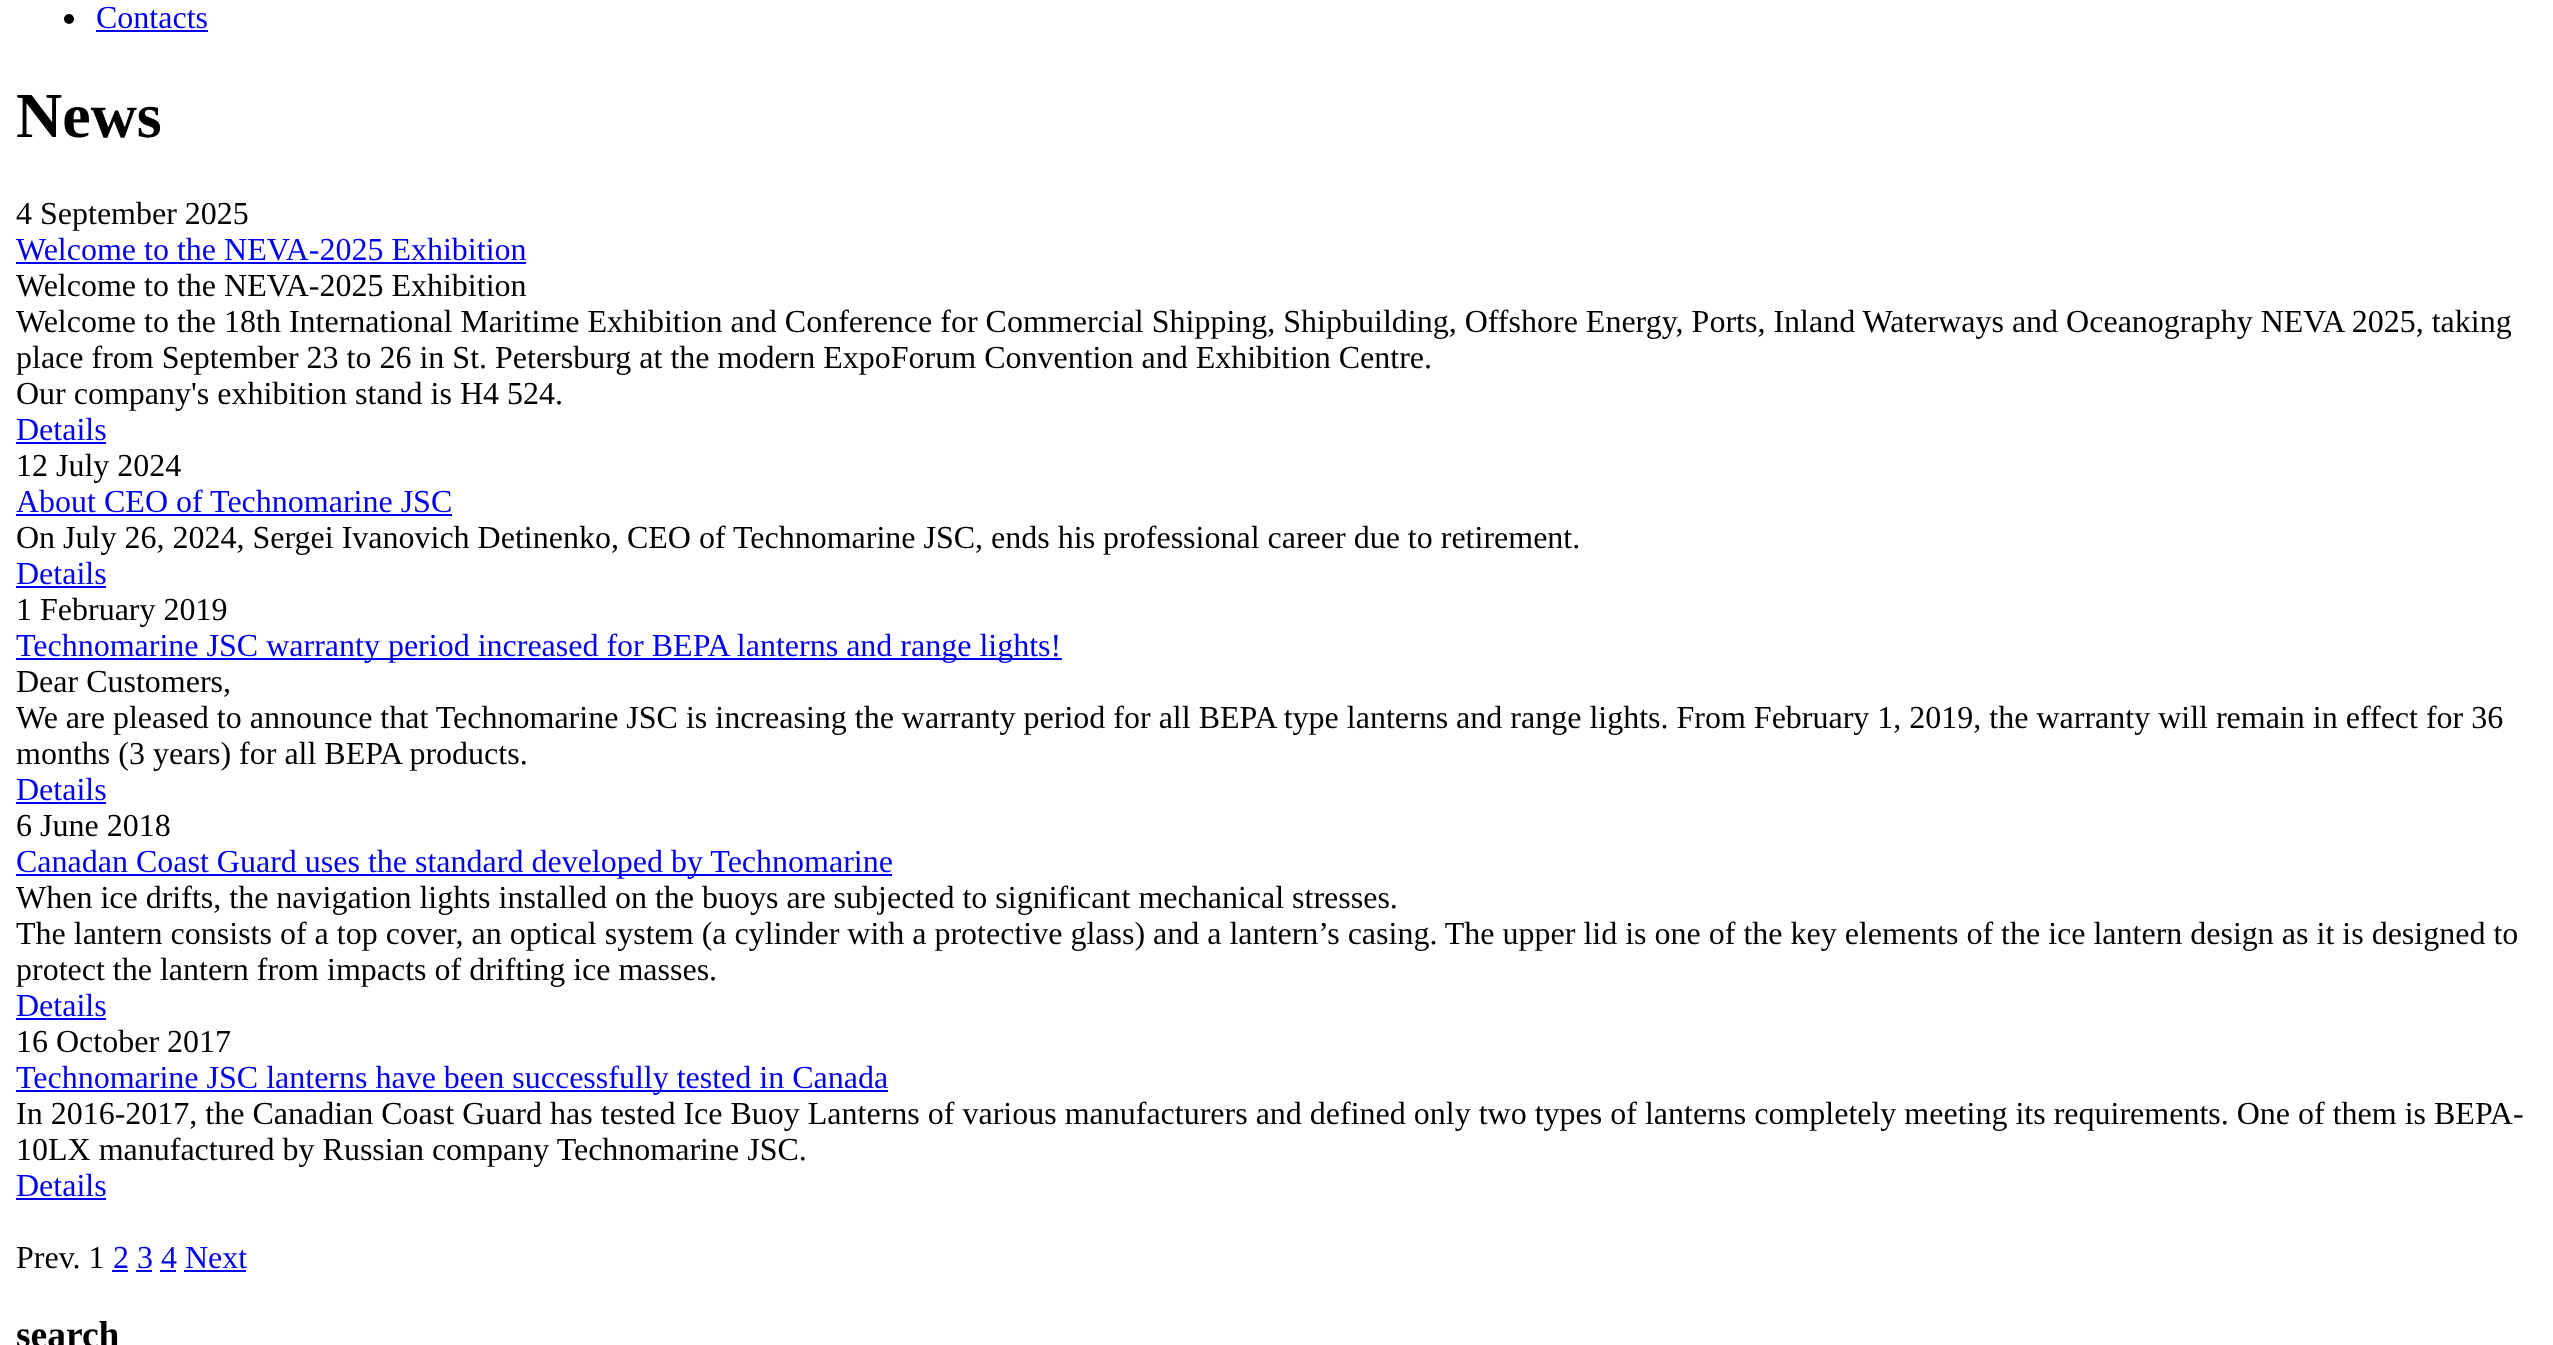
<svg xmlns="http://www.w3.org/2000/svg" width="2553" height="1345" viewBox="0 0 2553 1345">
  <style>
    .t1 { font: 32px Liberation Serif; fill: #00e; }
    .t2 { font: bold 64px Liberation Serif; fill: #000; }
    .t3 { font: 32px Liberation Serif; fill: #000; }
    .t4 { font: bold 37.5px Liberation Serif; fill: #000; }
  </style>
  <rect width="100%" height="100%" fill="#fff"/>
  <circle cx="69" cy="19" r="5" fill="#000"/>
  <text x="96" y="28" class="t1">Contacts</text>
  <rect x="96" y="30" width="112" height="2" fill="#00e"/>
  <text x="16" y="137" class="t2">News</text>
  <text x="16" y="224" class="t3">4 September 2025</text>
  <text x="16" y="260" class="t1">Welcome to the NEVA-2025 Exhibition</text>
  <rect x="16" y="262" width="510" height="2" fill="#00e"/>
  <text x="16" y="296" class="t3">Welcome to the NEVA-2025 Exhibition</text>
  <text x="16" y="332" class="t3">Welcome to the 18th International Maritime Exhibition and Conference for Commercial Shipping, Shipbuilding, Offshore Energy, Ports, Inland Waterways and Oceanography NEVA 2025, taking</text>
  <text x="16" y="368" class="t3">place from September 23 to 26 in St. Petersburg at the modern ExpoForum Convention and Exhibition Centre.</text>
  <text x="16" y="404" class="t3">Our company's exhibition stand is Н4 524.</text>
  <text x="16" y="440" class="t1">Details</text>
  <rect x="16" y="442" width="90" height="2" fill="#00e"/>
  <text x="16" y="476" class="t3">12 July 2024</text>
  <text x="16" y="512" class="t1">About CEO of Technomarine JSC</text>
  <rect x="16" y="514" width="436" height="2" fill="#00e"/>
  <text x="16" y="548" class="t3">On July 26, 2024, Sergei Ivanovich Detinenko, CEO of Technomarine JSC, ends his professional career due to retirement.</text>
  <text x="16" y="584" class="t1">Details</text>
  <rect x="16" y="586" width="90" height="2" fill="#00e"/>
  <text x="16" y="620" class="t3">1 February 2019</text>
  <rect x="16" y="658" width="1046" height="2" fill="#00e"/>
  <text x="16" y="656" class="t1">Technomarine JSC warranty period increased for BEPA lanterns and range lights!</text>
  <text x="16" y="692" class="t3">Dear Customers,</text>
  <text x="16" y="728" class="t3">We are pleased to announce that Technomarine JSC is increasing the warranty period for all BEPA type lanterns and range lights. From February 1, 2019, the warranty will remain in effect for 36</text>
  <text x="16" y="764" class="t3">months (3 years) for all BEPA products.</text>
  <text x="16" y="800" class="t1">Details</text>
  <rect x="16" y="802" width="90" height="2" fill="#00e"/>
  <text x="16" y="836" class="t3">6 June 2018</text>
  <rect x="16" y="874" width="876" height="2" fill="#00e"/>
  <text x="16" y="872" class="t1">Canadan Coast Guard uses the standard developed by Technomarine</text>
  <text x="16" y="908" class="t3">When ice drifts, the navigation lights installed on the buoys are subjected to significant mechanical stresses.</text>
  <text x="16" y="944" class="t3">The lantern consists of a top cover, an optical system (a cylinder with a protective glass) and a lantern’s casing. The upper lid is one of the key elements of the ice lantern design as it is designed to</text>
  <text x="16" y="980" class="t3">protect the lantern from impacts of drifting ice masses.</text>
  <text x="16" y="1016" class="t1">Details</text>
  <rect x="16" y="1018" width="90" height="2" fill="#00e"/>
  <text x="16" y="1052" class="t3">16 October 2017</text>
  <rect x="16" y="1090" width="872" height="2" fill="#00e"/>
  <text x="16" y="1088" class="t1">Technomarine JSC lanterns have been successfully tested in Canada</text>
  <text x="16" y="1124" class="t3">In 2016-2017, the Canadian Coast Guard has tested Ice Buoy Lanterns of various manufacturers and defined only two types of lanterns completely meeting its requirements. One of them is BEPA-</text>
  <text x="16" y="1160" class="t3">10LX manufactured by Russian company Technomarine JSC.</text>
  <text x="16" y="1196" class="t1">Details</text>
  <rect x="16" y="1198" width="90" height="2" fill="#00e"/>
  <text x="16" y="1268" class="t3">Prev. 1</text>
  <text x="113" y="1268" class="t1">2 3 4 Next</text>
  <rect x="112" y="1270" width="16" height="2" fill="#00e"/>
  <rect x="136" y="1270" width="16" height="2" fill="#00e"/>
  <rect x="160" y="1270" width="16" height="2" fill="#00e"/>
  <rect x="184" y="1270" width="62" height="2" fill="#00e"/>
  <text x="16" y="1347" class="t4">search</text>
</svg>
